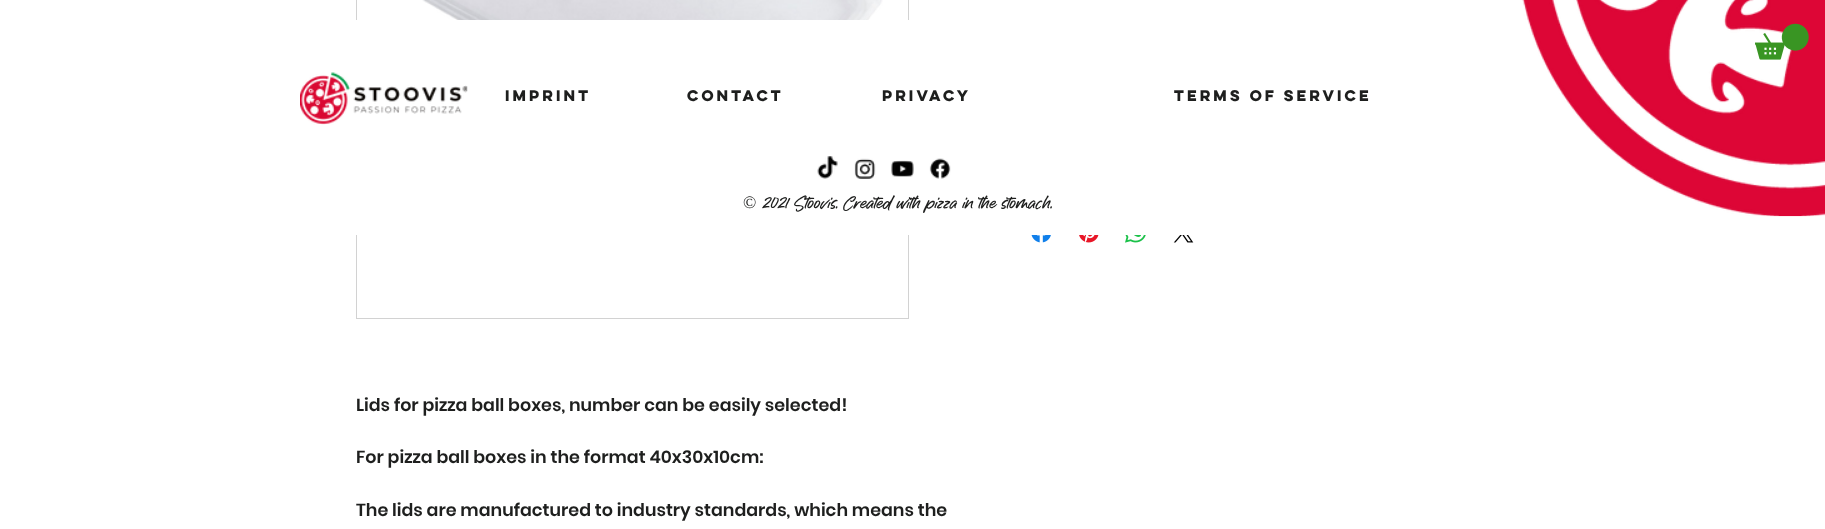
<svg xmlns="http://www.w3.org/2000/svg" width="1825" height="529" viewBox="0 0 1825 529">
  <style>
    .t1 { font: bold 13.75px 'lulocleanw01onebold'; fill: #1e1f1e; }
    .t2 { font: 17.5px Liberation Serif; fill: #1e1f1e; }
    .t3 { font: 17.5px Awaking; fill: #1e1f1e; }
    .t4 { font: 600 17.5px Poppins; fill: #1e1f1e; }
  </style>
  <rect width="100%" height="100%" fill="#fff"/>
  <image x="1522" y="0" width="303" height="217" href="images/3.png"/>
  <image x="1755" y="23" width="54" height="37" href="images/1.png"/>
  <rect x="356.5" y="-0.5" width="552" height="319" fill="none" stroke="#d2d2d2"/>
  <rect x="356" y="20" width="553" height="215" fill="#fff"/>
  <image x="300" y="72" width="168" height="53" href="images/2.png"/>
  <text x="505" y="101" class="t1">imprint</text>
  <text x="687" y="101" class="t1">Contact</text>
  <text x="882" y="101" class="t1">privacy</text>
  <text x="1174" y="101" class="t1">Terms of Service</text>
  <image x="817" y="156" width="21" height="23" href="images/4.png"/>
  <image x="854" y="158" width="22" height="21" href="images/5.png"/>
  <image x="891" y="160" width="23" height="17" href="images/6.png"/>
  <image x="929" y="158" width="22" height="21" href="images/7.png"/>
  <text x="743" y="208" class="t2">©</text>
  <text x="762" y="208" class="t3">2021 Stoovis. Created with pizza in the stomach.</text>
  <image x="1031" y="235" width="20" height="8" href="images/8.png"/>
  <image x="1079" y="235" width="20" height="8" href="images/9.png"/>
  <image x="1125" y="235" width="21" height="8" href="images/10.png"/>
  <image x="1173" y="235" width="21" height="8" href="images/11.png"/>
  <image x="422" y="0" width="461" height="20" href="images/12.png"/>
  <text x="356" y="411" class="t4">Lids for pizza ball boxes, number can be easily selected!</text>
  <text x="356" y="463" class="t4">For pizza ball boxes in the format 40x30x10cm:</text>
  <text x="356" y="516" class="t4">The lids are manufactured to industry standards, which means the</text>
</svg>
